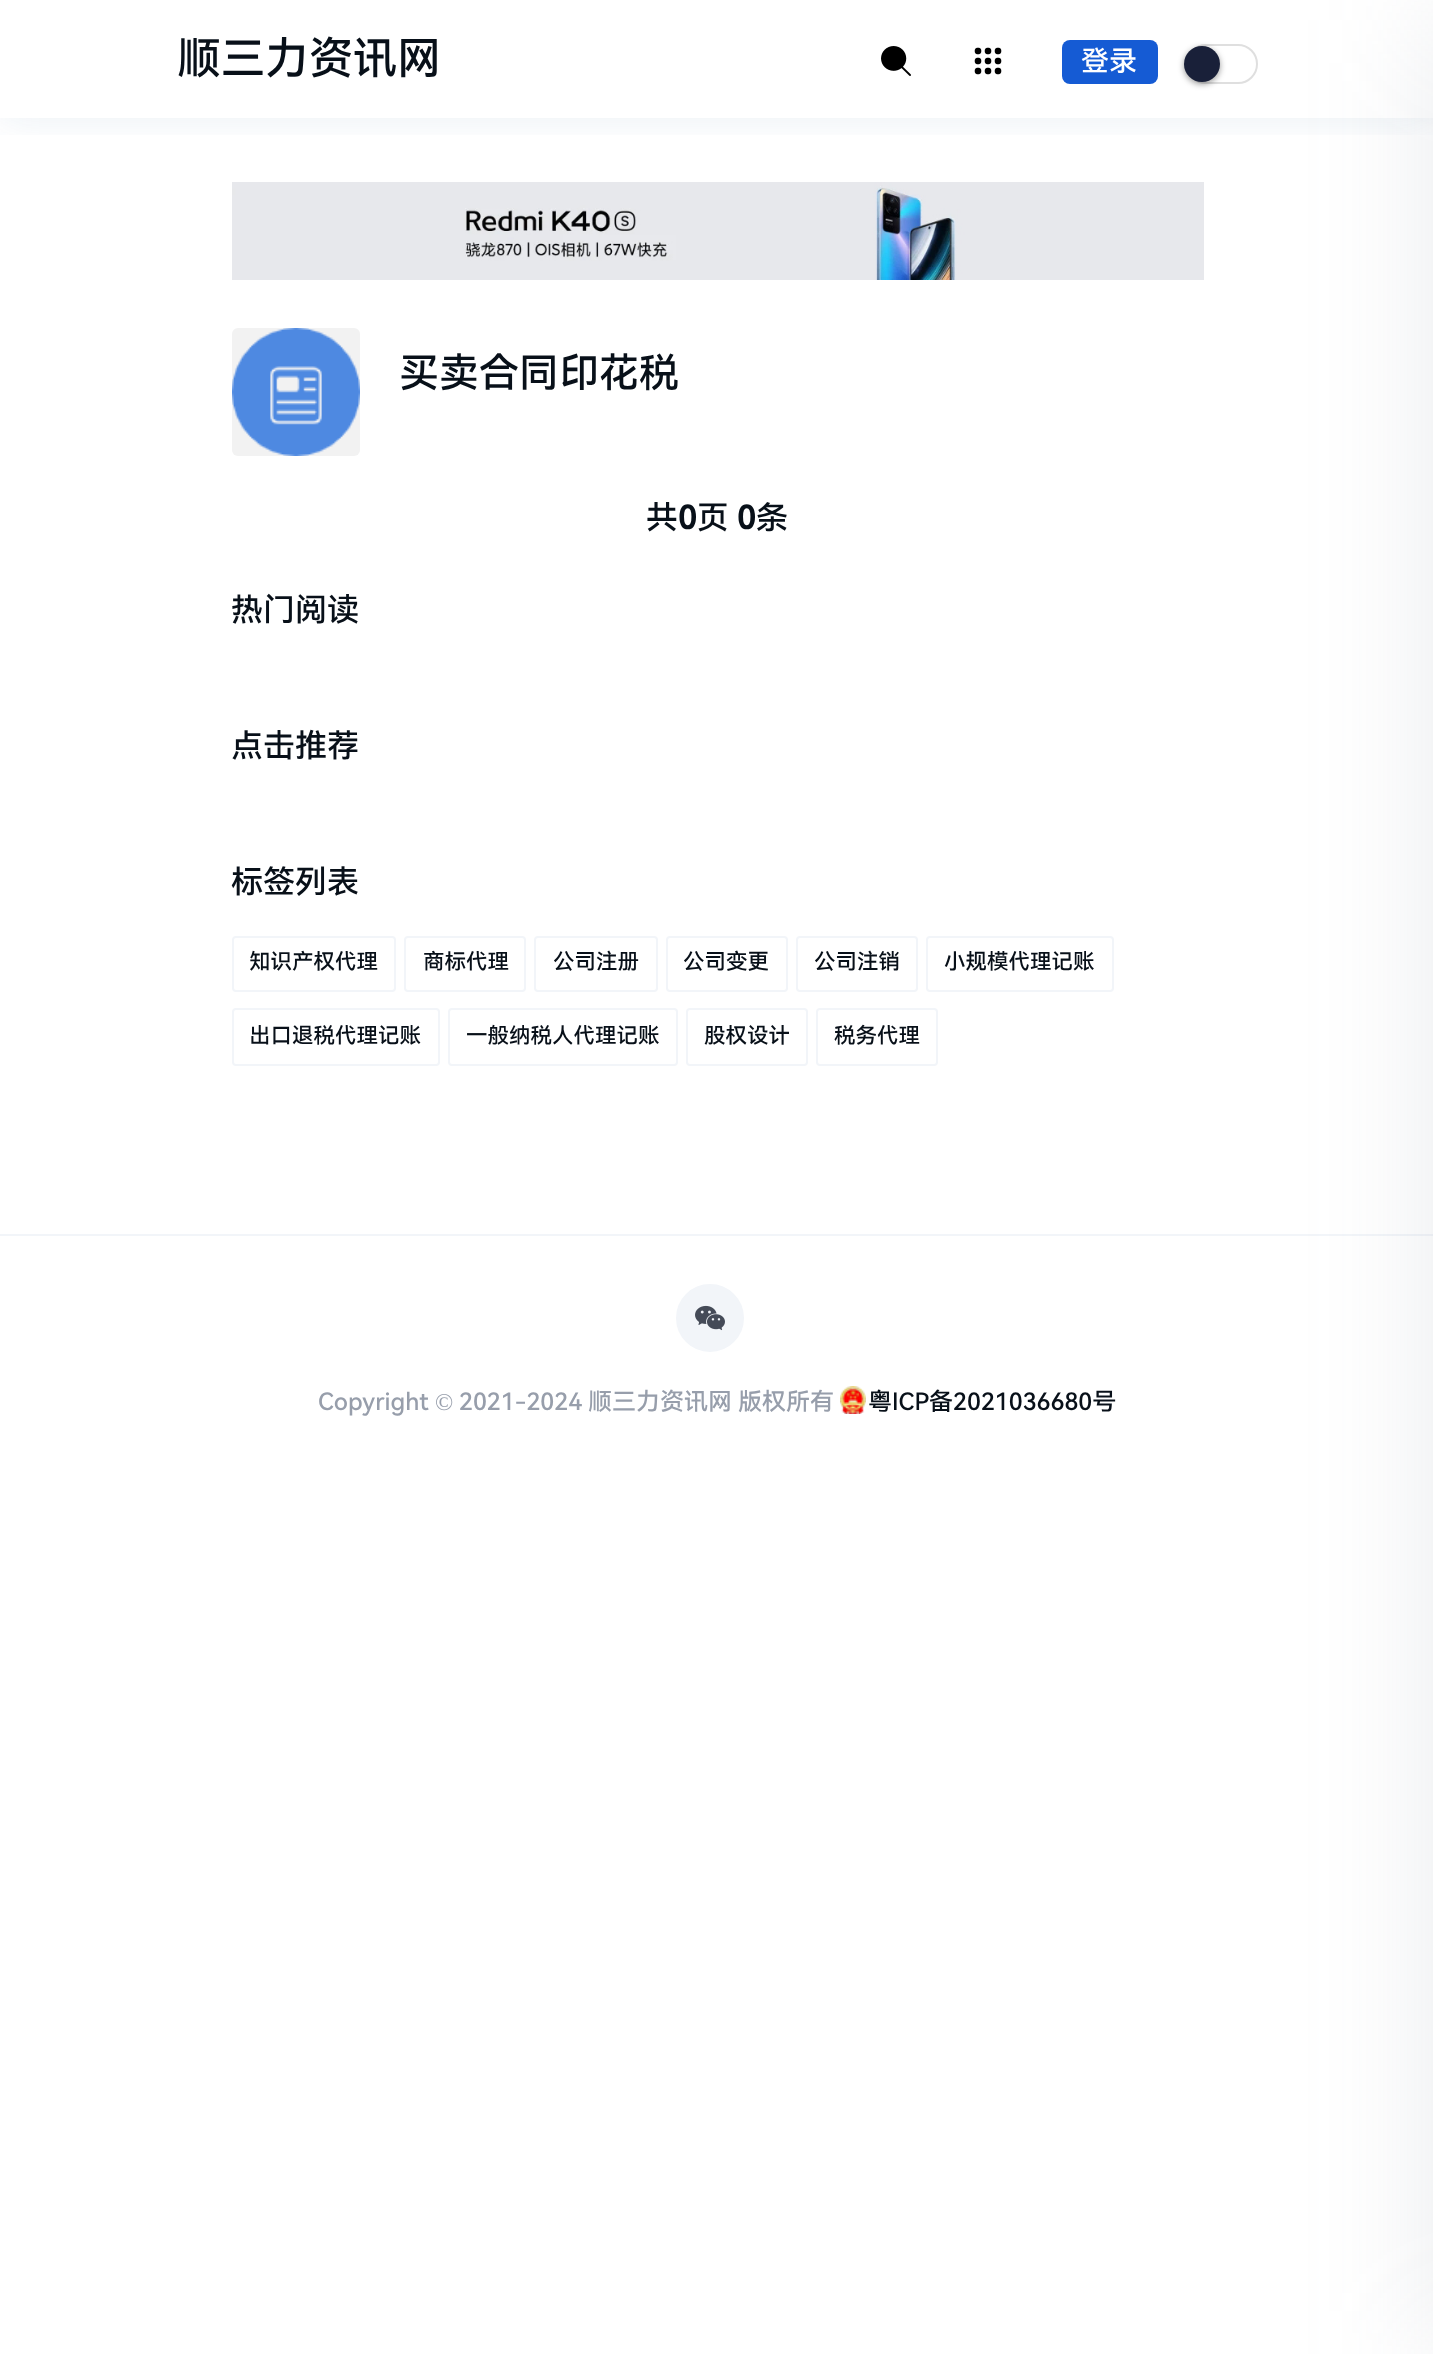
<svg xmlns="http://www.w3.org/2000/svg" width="1433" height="2354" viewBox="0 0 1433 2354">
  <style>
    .t1 { font: 500 44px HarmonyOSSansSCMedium; fill: #081019; }
    .t2 { font: 500 28px HarmonyOSSansSCMedium; fill: #fff; }
    .t3 { font: 500 40px HarmonyOSSansSCMedium; fill: #081019; }
    .t4 { font: 500 32px HarmonyOSSansSCMedium; fill: #081019; }
    .t5 { font: bold 32px HarmonyOSSansSCMedium; fill: #081019; }
    .t6 { font: 500 21.5px HarmonyOSSansSCMedium; fill: #081019; }
    .t7 { font: 500 24px HarmonyOSSansSCMedium; fill: #979eab; }
    .t8 { font: 24px Liberation Serif; fill: #979eab; }
    .t9 { font: 500 24px HarmonyOSSansSCMedium; fill: #081019; }
  </style>
  <defs>
    <clipPath id="clip1"><rect x="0" y="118" width="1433" height="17"/></clipPath>
  </defs>
  <rect width="100%" height="100%" fill="#fff"/>
  <g clip-path="url(#clip1)">
    <rect x="0" y="0" width="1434" height="118" fill="#2c65901a" filter="blur(20px)"/>
  </g>
  <text x="177" y="74" class="t1">顺三力资讯网</text>
  <image x="881" y="46" width="30" height="30" href="images/1.png"/>
  <image x="974" y="47" width="28" height="28" href="images/2.png"/>
  <rect x="1062" y="40" width="96" height="44" rx="8" fill="#155bd4"/>
  <text x="1081" y="71" class="t2">登录</text>
  <rect x="1187" y="45" width="70" height="38" rx="19" fill="none" stroke="#dfdfdf" stroke-width="2"/>
  <rect x="1184" y="48" width="36" height="36" rx="18" fill="#00000066" filter="blur(3px)"/>
  <circle cx="1202" cy="64" r="18" fill="#192039"/>
  <rect x="0" y="1234" width="1433" height="2" fill="#f2f5f9"/>
  <rect x="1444" y="20" width="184" height="2334" fill="#838c9d33" filter="blur(65px)"/>
  <image x="232" y="182" width="972" height="98" href="images/3.png"/>
  <rect x="232" y="328" width="128" height="128" rx="6" fill="#f2f2f2"/>
  <image x="232" y="328" width="128" height="128" href="images/4.png"/>
  <text x="399" y="387" class="t3">买卖合同印花税</text>
  <text x="646" y="529" class="t4">共</text>
  <text x="678" y="529" class="t5">0</text>
  <text x="697" y="529" class="t4">页</text>
  <text x="737" y="529" class="t5">0</text>
  <text x="756" y="529" class="t4">条</text>
  <text x="231" y="621" class="t4">热门阅读</text>
  <text x="231" y="757" class="t4">点击推荐</text>
  <text x="231" y="893" class="t4">标签列表</text>
  <rect x="233" y="937" width="162" height="54" rx="3" fill="none" stroke="#f2f5f9" stroke-width="2"/>
  <text x="249" y="969" class="t6">知识产权代理</text>
  <rect x="405" y="937" width="120" height="54" rx="3" fill="none" stroke="#f2f5f9" stroke-width="2"/>
  <text x="423" y="969" class="t6">商标代理</text>
  <rect x="535" y="937" width="122" height="54" rx="3" fill="none" stroke="#f2f5f9" stroke-width="2"/>
  <text x="553" y="969" class="t6">公司注册</text>
  <rect x="667" y="937" width="120" height="54" rx="3" fill="none" stroke="#f2f5f9" stroke-width="2"/>
  <text x="683" y="969" class="t6">公司变更</text>
  <rect x="797" y="937" width="120" height="54" rx="3" fill="none" stroke="#f2f5f9" stroke-width="2"/>
  <text x="814" y="969" class="t6">公司注销</text>
  <rect x="927" y="937" width="186" height="54" rx="3" fill="none" stroke="#f2f5f9" stroke-width="2"/>
  <text x="944" y="969" class="t6">小规模代理记账</text>
  <rect x="233" y="1009" width="206" height="56" rx="3" fill="none" stroke="#f2f5f9" stroke-width="2"/>
  <text x="249" y="1043" class="t6">出口退税代理记账</text>
  <rect x="449" y="1009" width="228" height="56" rx="3" fill="none" stroke="#f2f5f9" stroke-width="2"/>
  <text x="466" y="1043" class="t6">一般纳税人代理记账</text>
  <rect x="687" y="1009" width="120" height="56" rx="3" fill="none" stroke="#f2f5f9" stroke-width="2"/>
  <text x="704" y="1043" class="t6">股权设计</text>
  <rect x="817" y="1009" width="120" height="56" rx="3" fill="none" stroke="#f2f5f9" stroke-width="2"/>
  <text x="834" y="1043" class="t6">税务代理</text>
  <circle cx="710" cy="1318" r="33" fill="#f2f5f9" stroke="#f2f5f9" stroke-width="2"/>
  <image x="695" y="1305" width="30" height="26" href="images/5.png"/>
  <text x="318" y="1410" class="t7">Copyright</text>
  <text x="435" y="1410" class="t8">©</text>
  <text x="459" y="1410" class="t7">2021-2024</text>
  <text x="588" y="1410" class="t7">顺三力资讯网</text>
  <text x="738" y="1410" class="t7">版权所有</text>
  <image x="840" y="1386" width="26" height="28" href="images/6.png"/>
  <text x="868" y="1410" class="t9">粤ICP备2021036680号</text>
</svg>
